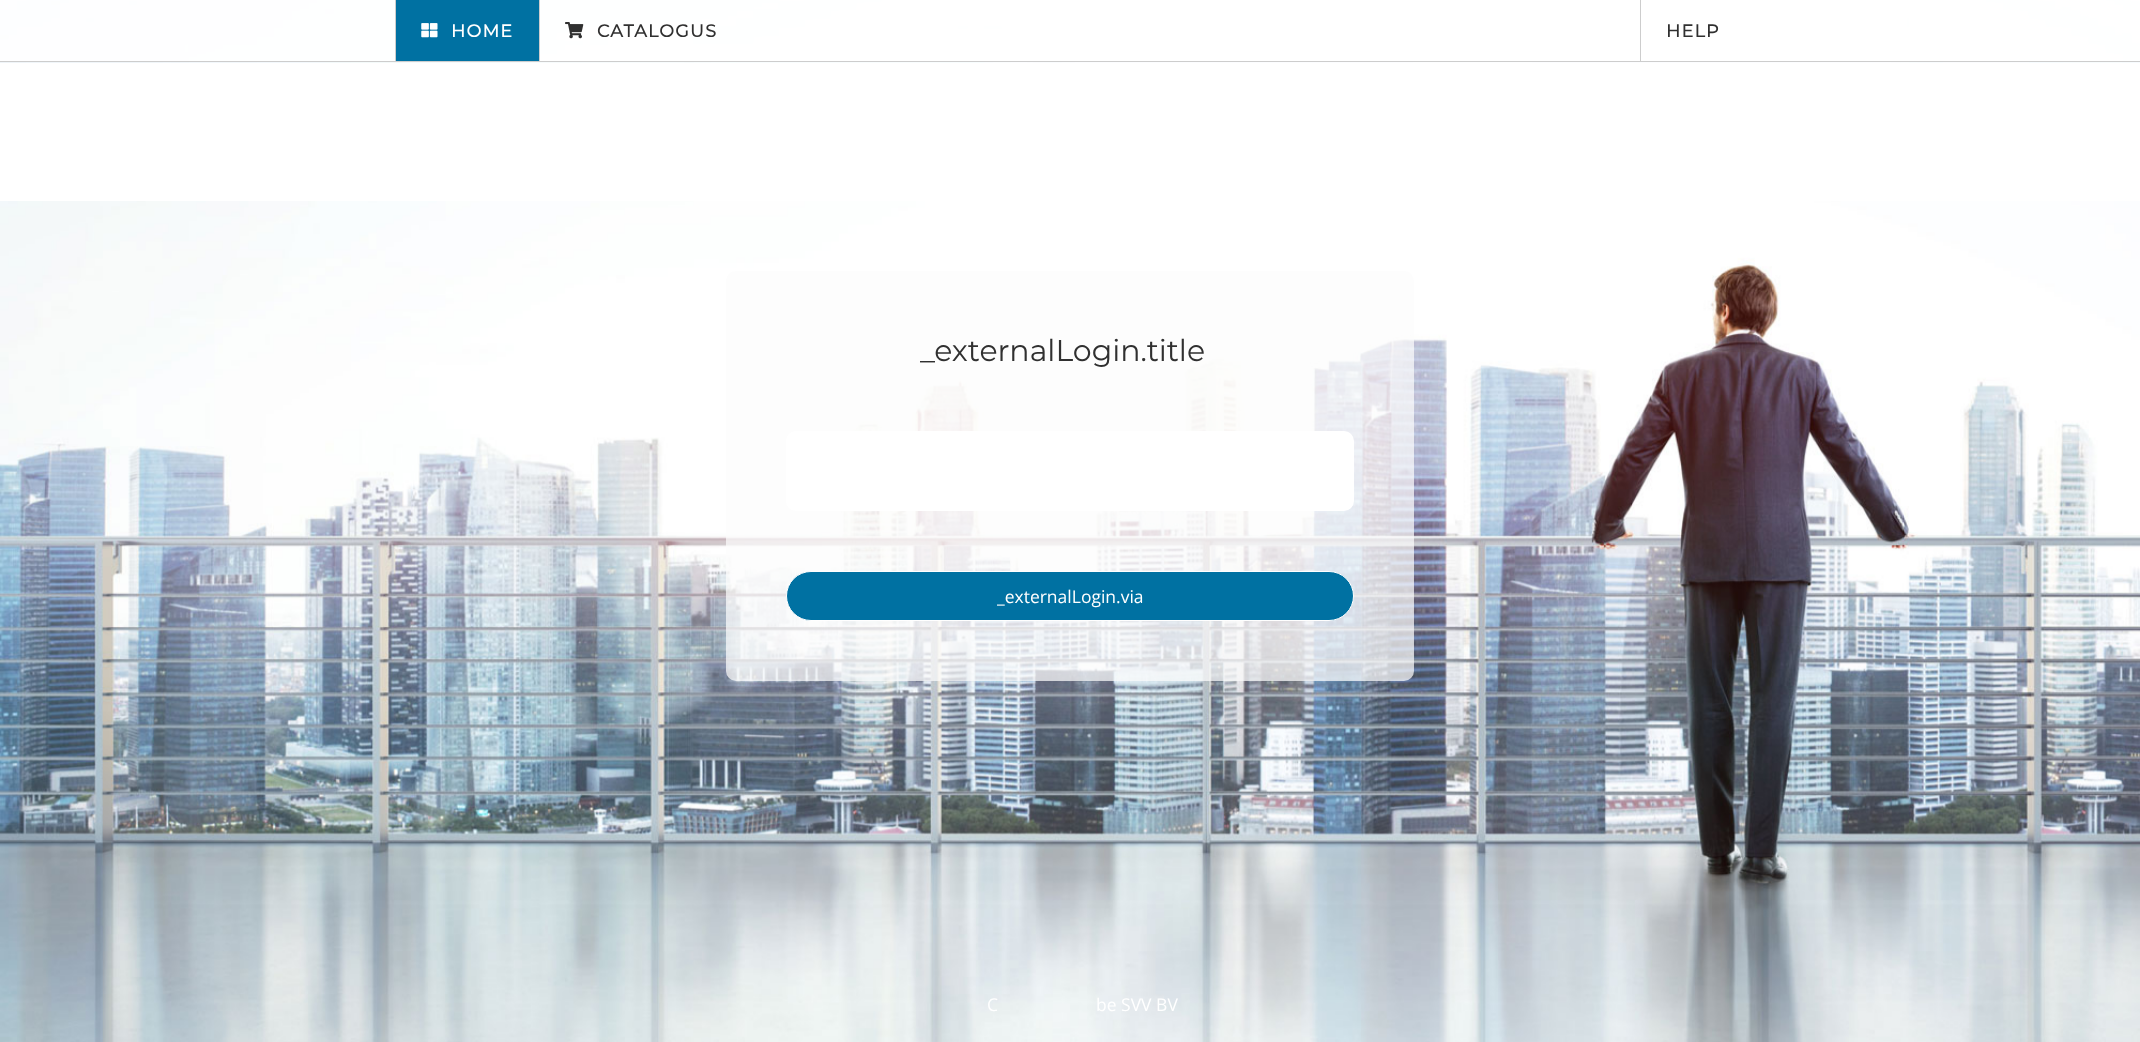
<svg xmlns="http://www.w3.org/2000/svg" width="2140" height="1042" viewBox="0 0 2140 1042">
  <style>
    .t1 { font: bold 17.5px Montserrat; letter-spacing: 1.25px; fill: #fff; }
    .t2 { font: bold 17.5px Montserrat; letter-spacing: 1.25px; fill: #303030; }
    .t3 { font: 100 30px Montserrat; fill: #303030; }
    .t4 { font: 17.5px Open Sans; fill: #fff; }
  </style>
  <rect width="100%" height="100%" fill="#fff"/>
  <image x="0" y="0" width="2140" height="1042" href="images/1.png"/>
  <rect x="0" y="0" width="2140" height="61" fill="#ffffffe6"/>
  <rect x="0" y="61" width="2140" height="1" fill="#cdcdcd"/>
  <rect x="396" y="0" width="143" height="61" fill="#0071a2"/>
  <rect x="395" y="0" width="1" height="61" fill="#cdcdcd"/>
  <image x="421" y="23" width="17" height="15" href="images/2.png"/>
  <text x="451" y="37" class="t1">HOME</text>
  <rect x="539" y="0" width="1" height="61" fill="#cdcdcd"/>
  <image x="565" y="22" width="19" height="17" href="images/3.png"/>
  <text x="597" y="37" class="t2">CATALOGUS</text>
  <rect x="1640" y="0" width="1" height="61" fill="#cdcdcd"/>
  <text x="1666" y="37" class="t2">HELP</text>
  <rect x="0" y="63" width="2140" height="138" fill="#fff"/>
  <rect x="726" y="271" width="688" height="410" rx="10" fill="#fcfcfcb8"/>
  <text x="920" y="361" class="t3">_externalLogin.title</text>
  <rect x="786" y="431" width="568" height="80" rx="10" fill="#fff"/>
  <rect x="786.5" y="571.5" width="567" height="49" rx="24.5" fill="#0071a2" stroke="#fff"/>
  <text x="997" y="603" class="t4">_externalLogin.via</text>
  <text x="987" y="1011" class="t4">C</text>
  <text x="1096" y="1011" class="t4">be SVV BV</text>
</svg>
